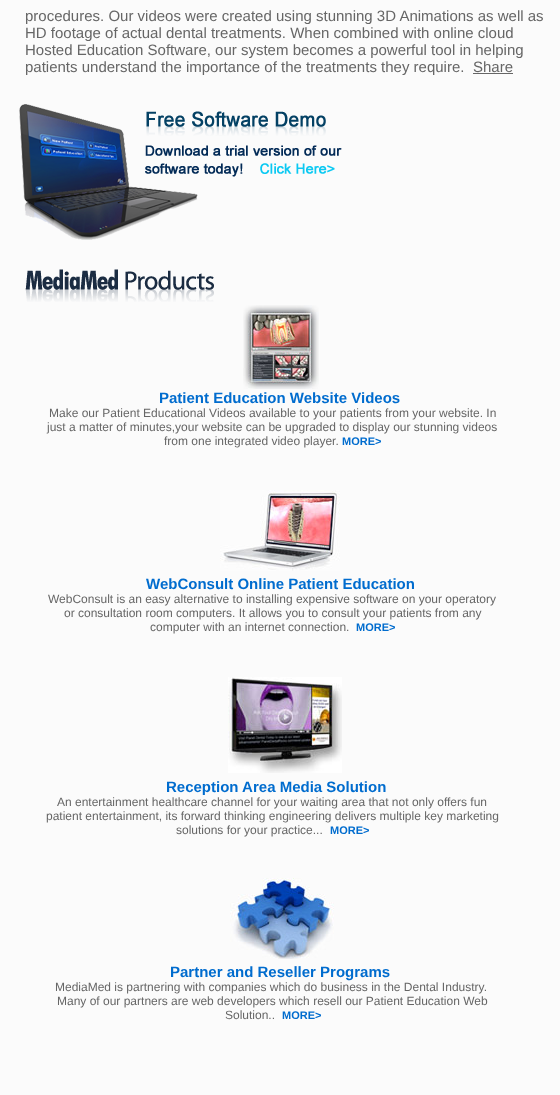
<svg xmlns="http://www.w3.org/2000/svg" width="560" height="1095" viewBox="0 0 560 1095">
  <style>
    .t1 { font: 15px Liberation Sans; fill: #666; }
    .t2 { font: bold 15px Liberation Sans; fill: #006cce; }
    .t3 { font: 12px Liberation Sans; fill: #666; }
    .t4 { font: bold 11px Liberation Sans; fill: #006cce; }
  </style>
  <rect width="100%" height="100%" fill="#fbfbfb"/>
  <text x="25" y="21" class="t1">procedures. Our videos were created using stunning 3D Animations as well as</text>
  <text x="25" y="38" class="t1">HD footage of actual dental treatments. When combined with online cloud</text>
  <text x="25" y="55" class="t1">Hosted Education Software, our system becomes a powerful tool in helping</text>
  <text x="25" y="72" class="t1">patients understand the importance of the treatments they require.</text>
  <text x="473" y="72" class="t1">Share</text>
  <rect x="473" y="73" width="40" height="1" fill="#666"/>
  <image x="19" y="104" width="323" height="136" href="images/1.png"/>
  <image x="25" y="269" width="189" height="33" href="images/2.png"/>
  <image x="243" y="305" width="76" height="84" href="images/3.png"/>
  <text x="159" y="403" class="t2">Patient Education Website Videos</text>
  <text x="49" y="417" class="t3">Make our Patient Educational Videos available to your patients from your website. In</text>
  <text x="47" y="431" class="t3">just a matter of minutes,your website can be upgraded to display our stunning videos</text>
  <text x="164" y="445" class="t3">from one integrated video player.</text>
  <text x="342" y="445" class="t4">MORE&gt;</text>
  <image x="220" y="490" width="120" height="81" href="images/4.png"/>
  <text x="146" y="589" class="t2">WebConsult Online Patient Education</text>
  <text x="48" y="603" class="t3">WebConsult is an easy alternative to installing expensive software on your operatory</text>
  <text x="64" y="617" class="t3">or consultation room computers. It allows you to consult your patients from any</text>
  <text x="150" y="631" class="t3">computer with an internet connection.</text>
  <text x="356" y="631" class="t4">MORE&gt;</text>
  <image x="228" y="677" width="114" height="96" href="images/5.png"/>
  <text x="166" y="792" class="t2">Reception Area Media Solution</text>
  <text x="57" y="806" class="t3">An entertainment healthcare channel for your waiting area that not only offers fun</text>
  <text x="46" y="820" class="t3">patient entertainment, its forward thinking engineering delivers multiple key marketing</text>
  <text x="176" y="834" class="t3">solutions for your practice...</text>
  <text x="330" y="834" class="t4">MORE&gt;</text>
  <image x="230" y="878" width="104" height="81" href="images/6.png"/>
  <text x="170" y="977" class="t2">Partner and Reseller Programs</text>
  <text x="55" y="991" class="t3">MediaMed is partnering with companies which do business in the Dental Industry.</text>
  <text x="57" y="1005" class="t3">Many of our partners are web developers which resell our Patient Education Web</text>
  <text x="225" y="1019" class="t3">Solution..</text>
  <text x="282" y="1019" class="t4">MORE&gt;</text>
</svg>
